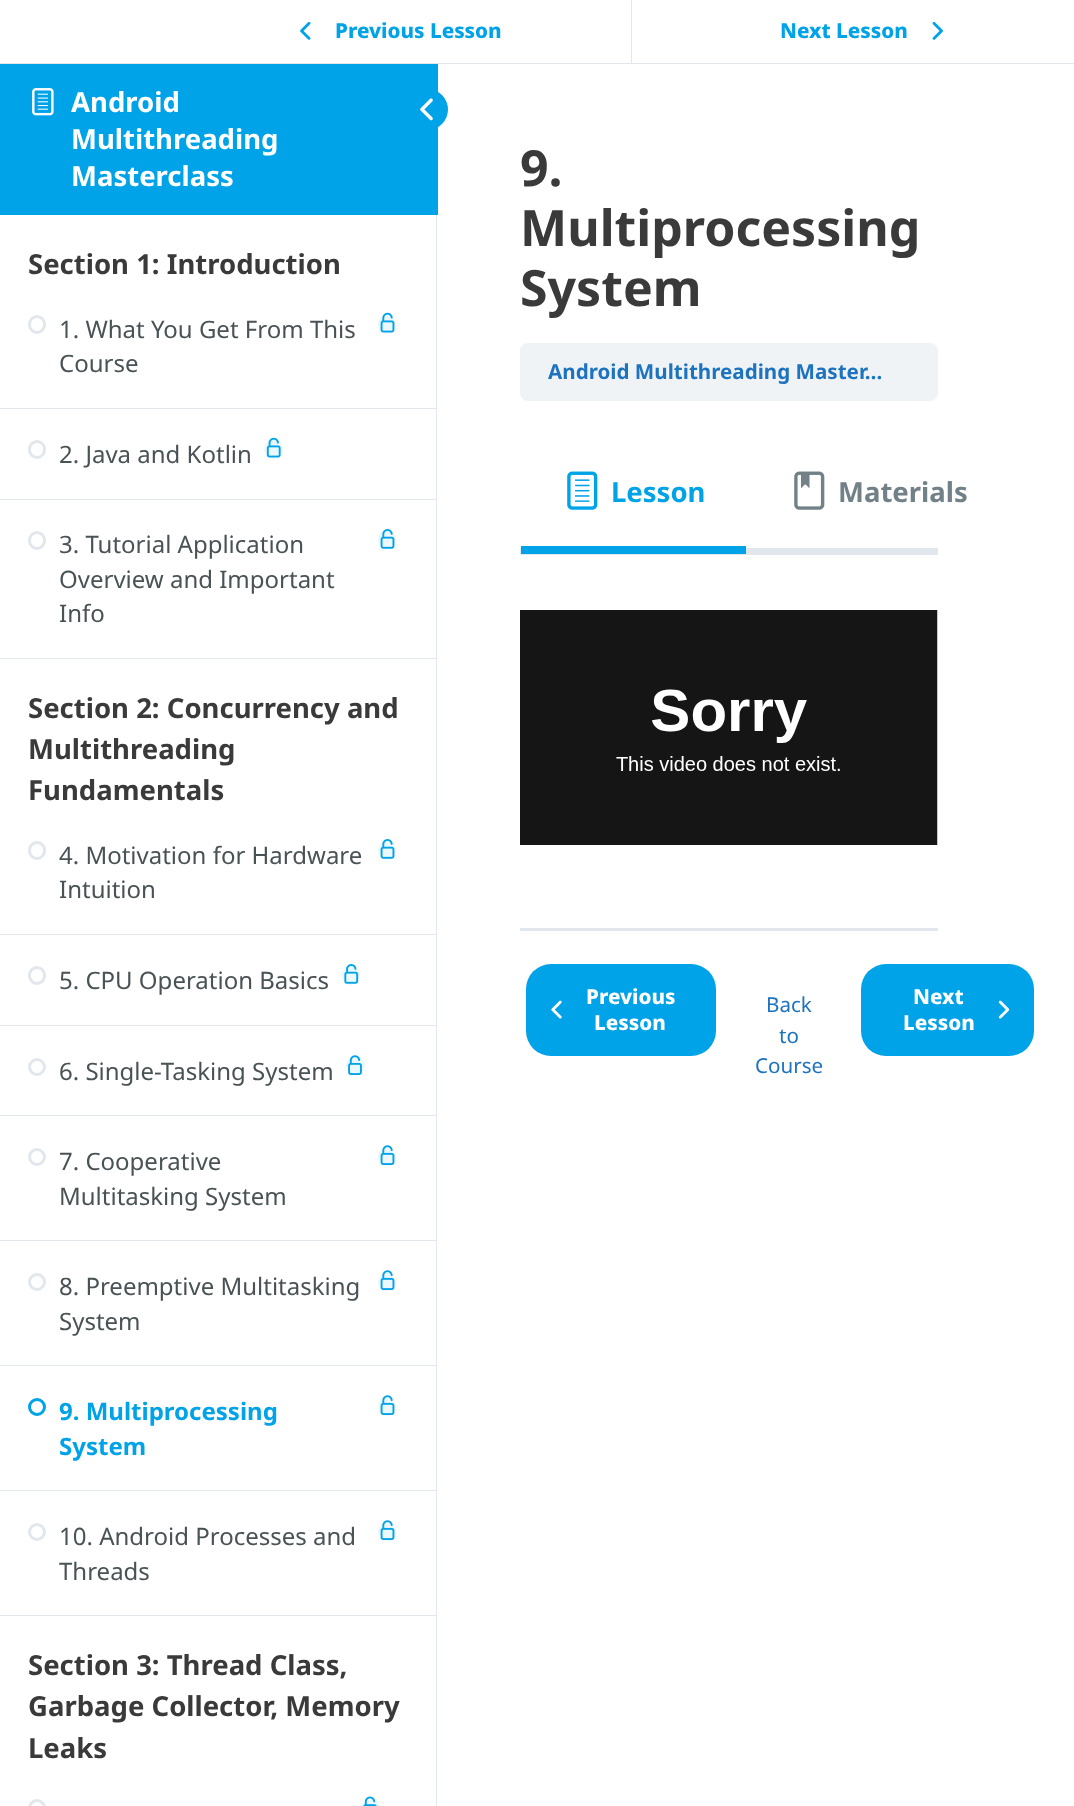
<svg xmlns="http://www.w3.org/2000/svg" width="1074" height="1806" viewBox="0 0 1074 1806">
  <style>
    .t1 { font: bold 27.5px Noto Sans; fill: #fff; }
    .t2 { font: bold 27.5px Noto Sans; fill: #3a3a3a; }
    .t3 { font: 24px Noto Sans; fill: #495255; }
    .t4 { font: bold 24px Noto Sans; fill: #00a2e8; }
    .t5 { font: 800 20.6px Noto Sans; fill: #00a2e8; }
    .t6 { font: bold 50px Noto Sans; fill: #3a3a3a; }
    .t7 { font: bold 20.6px Noto Sans; fill: #1e73be; }
    .t8 { font: bold 27.5px Noto Sans; fill: #00a2e8; }
    .t9 { font: bold 27.5px Noto Sans; fill: #728188; }
    .t10 { font: 800 20.6px Noto Sans; fill: #fff; }
    .t11 { font: 20.6px Noto Sans; fill: #1e73be; }
  </style>
  <rect width="100%" height="100%" fill="#fff"/>
  <rect x="436" y="215" width="1" height="1591" fill="#e2e7ed"/>
  <rect x="0" y="64" width="438" height="151" fill="#00a2e8"/>
  <image x="32" y="88" width="22" height="28" href="images/1.png"/>
  <text x="71" y="112" class="t1">Android</text>
  <text x="71" y="149" class="t1">Multithreading</text>
  <text x="71" y="186" class="t1">Masterclass</text>
  <rect x="405" y="89" width="43" height="41" rx="20.5" fill="#00a2e8"/>
  <image x="420" y="98" width="13" height="23" href="images/2.png"/>
  <text x="28" y="274" class="t2">Section 1: Introduction</text>
  <rect x="0" y="408" width="436" height="1" fill="#e2e7ed"/>
  <rect x="29.5" y="316.5" width="15" height="16" rx="7.5" fill="none" stroke="#e2e7ed" stroke-width="3"/>
  <text x="59" y="338" class="t3">1. What You Get From This</text>
  <rect x="378" y="315" width="18" height="19" rx="9" fill="#ebf8fd"/>
  <image x="380" y="312" width="15" height="21" href="images/3.png"/>
  <text x="59" y="372" class="t3">Course</text>
  <rect x="0" y="499" width="436" height="1" fill="#e2e7ed"/>
  <rect x="29.5" y="441.5" width="15" height="16" rx="7.5" fill="none" stroke="#e2e7ed" stroke-width="3"/>
  <text x="59" y="463" class="t3">2. Java and Kotlin</text>
  <circle cx="273.5" cy="449.5" r="9.5" fill="#ebf8fd"/>
  <image x="266" y="437" width="15" height="21" href="images/4.png"/>
  <rect x="0" y="658" width="436" height="1" fill="#e2e7ed"/>
  <rect x="29.5" y="532.5" width="15" height="16" rx="7.5" fill="none" stroke="#e2e7ed" stroke-width="3"/>
  <text x="59" y="553" class="t3">3. Tutorial Application</text>
  <rect x="378" y="530" width="18" height="19" rx="9" fill="#ebf8fd"/>
  <image x="380" y="529" width="15" height="20" href="images/5.png"/>
  <text x="59" y="588" class="t3">Overview and Important</text>
  <text x="59" y="622" class="t3">Info</text>
  <text x="28" y="718" class="t2">Section 2: Concurrency and</text>
  <text x="28" y="759" class="t2">Multithreading</text>
  <text x="28" y="800" class="t2">Fundamentals</text>
  <rect x="0" y="934" width="436" height="1" fill="#e2e7ed"/>
  <rect x="29.5" y="842.5" width="15" height="16" rx="7.5" fill="none" stroke="#e2e7ed" stroke-width="3"/>
  <text x="59" y="864" class="t3">4. Motivation for Hardware</text>
  <rect x="378" y="841" width="18" height="19" rx="9" fill="#ebf8fd"/>
  <image x="380" y="839" width="15" height="20" href="images/6.png"/>
  <text x="59" y="898" class="t3">Intuition</text>
  <rect x="0" y="1025" width="436" height="1" fill="#e2e7ed"/>
  <rect x="29.5" y="967.5" width="15" height="16" rx="7.5" fill="none" stroke="#e2e7ed" stroke-width="3"/>
  <text x="59" y="989" class="t3">5. CPU Operation Basics</text>
  <circle cx="350.5" cy="975.5" r="9.5" fill="#ebf8fd"/>
  <image x="344" y="964" width="15" height="20" href="images/7.png"/>
  <rect x="0" y="1115" width="436" height="1" fill="#e2e7ed"/>
  <circle cx="37" cy="1067" r="7.5" fill="none" stroke="#e2e7ed" stroke-width="3"/>
  <text x="59" y="1080" class="t3">6. Single-Tasking System</text>
  <circle cx="355.5" cy="1065.5" r="9.5" fill="#ebf8fd"/>
  <image x="348" y="1055" width="14" height="20" href="images/8.png"/>
  <rect x="0" y="1240" width="436" height="1" fill="#e2e7ed"/>
  <circle cx="37" cy="1157" r="7.5" fill="none" stroke="#e2e7ed" stroke-width="3"/>
  <text x="59" y="1170" class="t3">7. Cooperative</text>
  <circle cx="387" cy="1157" r="9" fill="#ebf8fd"/>
  <image x="380" y="1145" width="15" height="20" href="images/9.png"/>
  <text x="59" y="1205" class="t3">Multitasking System</text>
  <rect x="0" y="1365" width="436" height="1" fill="#e2e7ed"/>
  <circle cx="37" cy="1282" r="7.5" fill="none" stroke="#e2e7ed" stroke-width="3"/>
  <text x="59" y="1295" class="t3">8. Preemptive Multitasking</text>
  <circle cx="387" cy="1282" r="9" fill="#ebf8fd"/>
  <image x="380" y="1270" width="15" height="20" href="images/9.png"/>
  <text x="59" y="1330" class="t3">System</text>
  <rect x="0" y="1490" width="436" height="1" fill="#e2e7ed"/>
  <circle cx="37" cy="1407" r="7.5" fill="none" stroke="#00a2e8" stroke-width="3"/>
  <text x="59" y="1420" class="t4">9. Multiprocessing</text>
  <circle cx="387" cy="1407" r="9" fill="#ebf8fd"/>
  <image x="380" y="1395" width="15" height="20" href="images/9.png"/>
  <text x="59" y="1455" class="t4">System</text>
  <rect x="0" y="1615" width="436" height="1" fill="#e2e7ed"/>
  <circle cx="37" cy="1532" r="7.5" fill="none" stroke="#e2e7ed" stroke-width="3"/>
  <text x="59" y="1545" class="t3">10. Android Processes and</text>
  <circle cx="387" cy="1532" r="9" fill="#ebf8fd"/>
  <image x="380" y="1520" width="15" height="20" href="images/9.png"/>
  <text x="59" y="1580" class="t3">Threads</text>
  <text x="28" y="1675" class="t2">Section 3: Thread Class,</text>
  <text x="28" y="1716" class="t2">Garbage Collector, Memory</text>
  <text x="28" y="1758" class="t2">Leaks</text>
  <rect x="29.5" y="1800.5" width="15" height="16" rx="7.5" fill="none" stroke="#e2e7ed" stroke-width="3"/>
  <rect x="361" y="1799" width="19" height="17" rx="9.5" fill="#ebf8fd"/>
  <image x="363" y="1796" width="14" height="10" href="images/10.png"/>
  <rect x="0" y="63" width="1074" height="1" fill="#e2e7ed"/>
  <rect x="631" y="0" width="1" height="63" fill="#e2e7ed"/>
  <image x="300" y="21" width="11" height="19" href="images/11.png"/>
  <text x="335" y="38" class="t5">Previous Lesson</text>
  <text x="780" y="38" class="t5">Next Lesson</text>
  <image x="932" y="21" width="11" height="19" href="images/12.png"/>
  <text x="520" y="186" class="t6">9.</text>
  <text x="520" y="246" class="t6">Multiprocessing</text>
  <text x="520" y="306" class="t6">System</text>
  <rect x="520" y="343" width="418" height="58" rx="8" fill="#f0f3f6"/>
  <text x="548" y="379" class="t7">Android Multithreading Master…</text>
  <image x="567" y="471" width="31" height="39" href="images/13.png"/>
  <text x="611" y="502" class="t8">Lesson</text>
  <rect x="520" y="548" width="418" height="7" fill="#e2e7ed"/>
  <rect x="521" y="546" width="225" height="8" fill="#00a2e8"/>
  <image x="794" y="471" width="31" height="39" href="images/14.png"/>
  <text x="838" y="502" class="t9">Materials</text>
  <image x="520" y="610" width="418" height="235" href="images/15.png"/>
  <rect x="520" y="928" width="418" height="3" fill="#e2e7ed"/>
  <rect x="526" y="964" width="190" height="92" rx="25" fill="#00a2e8"/>
  <image x="551" y="1000" width="11" height="19" href="images/16.png"/>
  <text x="586" y="1004" class="t10">Previous</text>
  <text x="594" y="1030" class="t10">Lesson</text>
  <text x="766" y="1012" class="t11">Back</text>
  <text x="779" y="1043" class="t11">to</text>
  <text x="755" y="1073" class="t11">Course</text>
  <rect x="861" y="964" width="173" height="92" rx="25" fill="#00a2e8"/>
  <text x="913" y="1004" class="t10">Next</text>
  <text x="903" y="1030" class="t10">Lesson</text>
  <image x="998" y="1000" width="12" height="19" href="images/17.png"/>
</svg>
